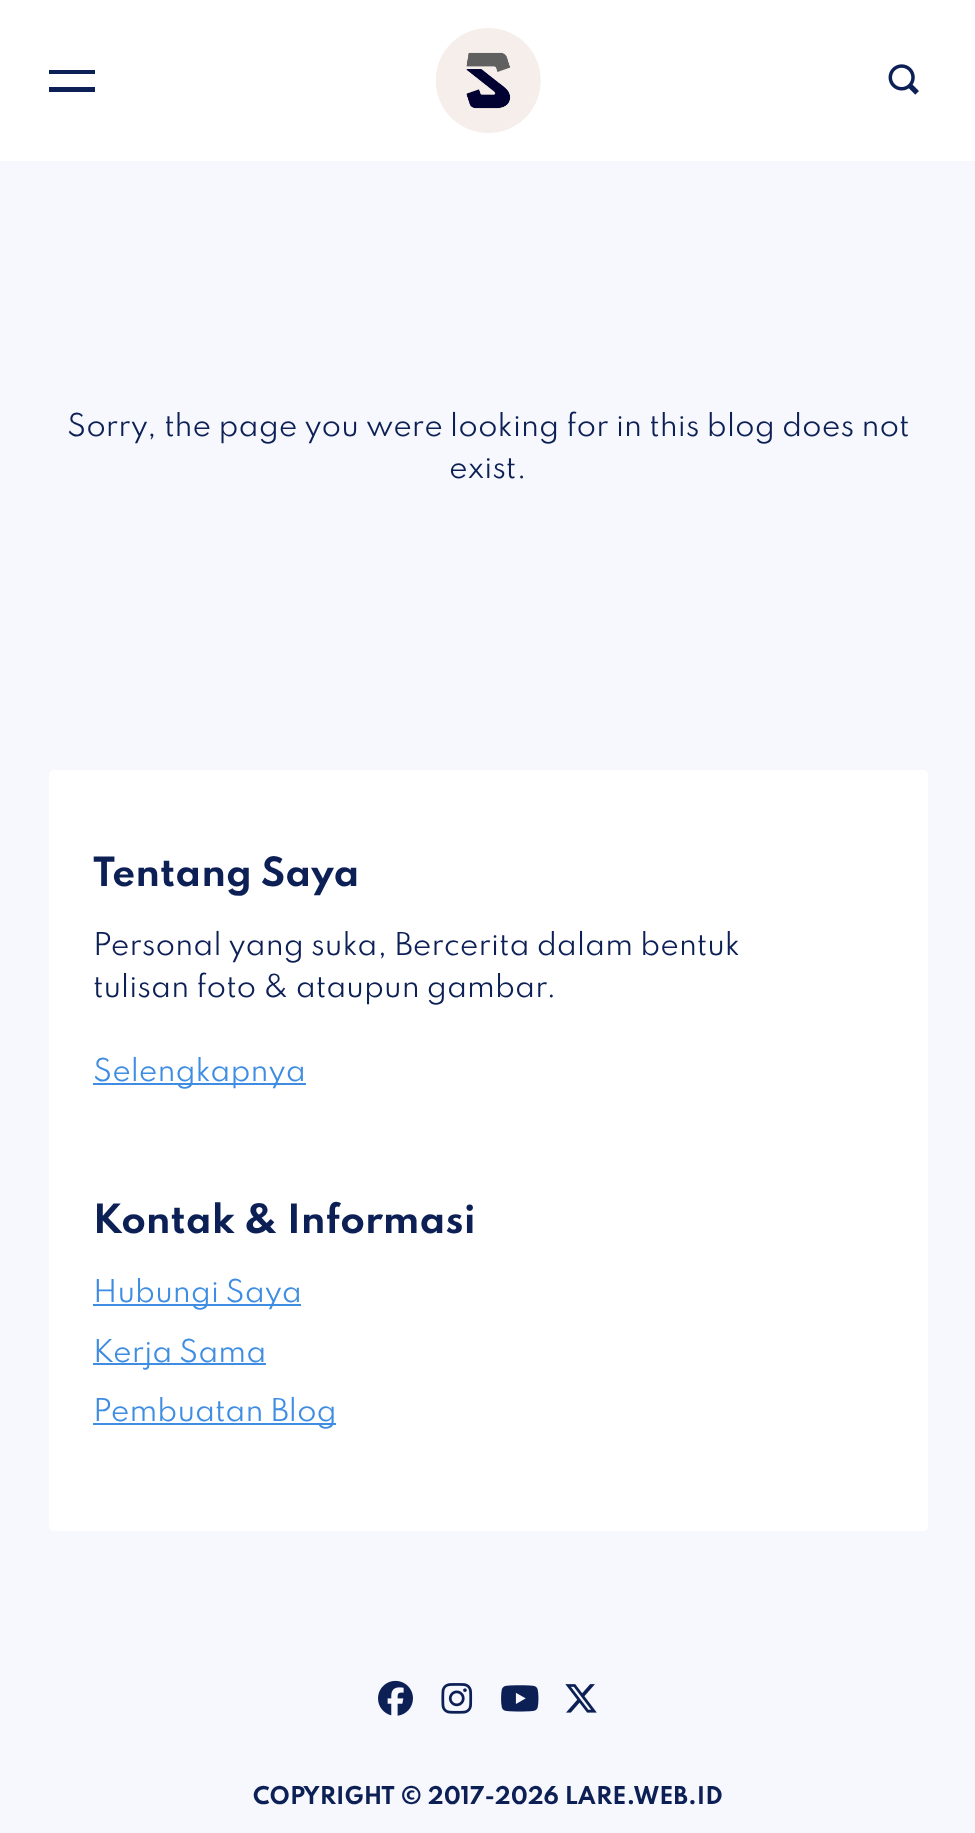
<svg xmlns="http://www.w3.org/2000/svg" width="975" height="1833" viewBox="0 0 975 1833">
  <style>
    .t1 { font: 28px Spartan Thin; fill: #0d2056; }
    .t2 { font: bold 35.75px Spartan Thin; fill: #0d2056; }
    .t3 { font: 28px Spartan Thin; fill: #3e8de3; }
    .t4 { font: bold 21.7px Spartan Thin; fill: #0d2056; }
  </style>
  <defs>
    <clipPath id="clip1"><rect x="49" y="70" width="46" height="23"/></clipPath>
  </defs>
  <rect width="100%" height="100%" fill="#f6f8fd"/>
  <rect x="0" y="0" width="975" height="161" fill="#fff"/>
  <g clip-path="url(#clip1)">
    <path d="M49 92V87H95V92ZM49 74V69H95V74Z" fill="#0d2056"/>
  </g>
  <image x="436" y="28" width="105" height="105" href="images/1.png"/>
  <image x="888" y="64" width="31" height="31" href="images/2.png"/>
  <text x="67" y="436" class="t1">Sorry, the page you were looking for in this blog does not</text>
  <text x="449" y="478" class="t1">exist.</text>
  <rect x="49" y="770" width="879" height="761" rx="5" fill="#fff"/>
  <text x="93" y="886" class="t2">Tentang Saya</text>
  <text x="93" y="955" class="t1">Personal yang suka, Bercerita dalam bentuk</text>
  <text x="93" y="997" class="t1">tulisan foto &amp; ataupun gambar.</text>
  <rect x="93" y="1083" width="213" height="2" fill="#3e8de3"/>
  <text x="93" y="1081" class="t3">Selengkapnya</text>
  <text x="93" y="1233" class="t2">Kontak &amp; Informasi</text>
  <rect x="93" y="1304" width="208" height="2" fill="#3e8de3"/>
  <text x="93" y="1302" class="t3">Hubungi Saya</text>
  <rect x="93" y="1363" width="173" height="2" fill="#3e8de3"/>
  <text x="93" y="1362" class="t3">Kerja Sama</text>
  <rect x="93" y="1423" width="243" height="2" fill="#3e8de3"/>
  <text x="93" y="1421" class="t3">Pembuatan Blog</text>
  <image x="378" y="1680" width="35" height="36" href="images/3.png"/>
  <image x="441" y="1683" width="32" height="31" href="images/4.png"/>
  <image x="501" y="1685" width="38" height="27" href="images/5.png"/>
  <image x="565" y="1684" width="32" height="29" href="images/6.png"/>
  <text x="253" y="1804" class="t4">COPYRIGHT © 2017-2026 LARE.WEB.ID</text>
</svg>
